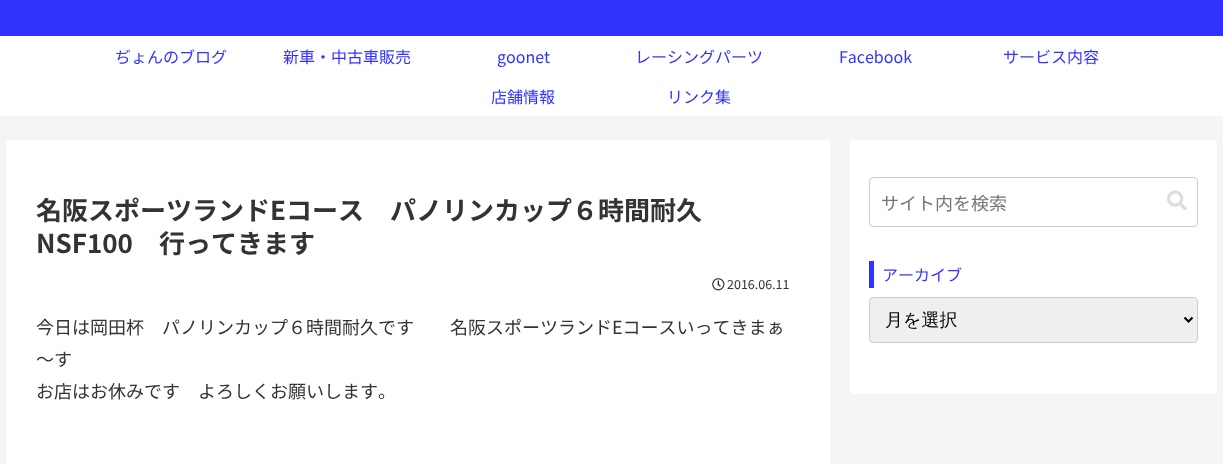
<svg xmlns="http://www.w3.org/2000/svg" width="1223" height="464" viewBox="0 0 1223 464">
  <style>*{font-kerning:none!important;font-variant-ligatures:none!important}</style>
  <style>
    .t1 { font: 16px Noto Sans JP; fill: #3232ff; }
    .t2 { font: bold 26px Noto Sans JP; fill: #333; }
    .t3 { font: 12.5px Noto Sans JP; fill: #333; }
    .t4 { font: 18px Noto Sans JP; fill: #333; }
    .t5 { font: 18px Noto Sans JP; fill: #757575; }
    .t6 { font: 500 18px WenQuanYi Zen Hei; fill: #000; }
  </style>
  <rect width="100%" height="100%" fill="#f4f5f7"/>
  <rect x="0" y="0" width="1223" height="36" fill="#3232ff"/>
  <rect x="0" y="36" width="1223" height="80" fill="#fff"/>
  <text x="115" y="63" class="t1">ぢょんのブログ</text>
  <text x="283" y="63" class="t1">新車・中古車販売</text>
  <text x="497" y="63" class="t1">goonet</text>
  <text x="635" y="63" class="t1">レーシングパーツ</text>
  <text x="839" y="63" class="t1">Facebook</text>
  <text x="1003" y="63" class="t1">サービス内容</text>
  <text x="491" y="103" class="t1">店舗情報</text>
  <text x="667" y="103" class="t1">リンク集</text>
  <rect x="6" y="140" width="824" height="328" rx="4" fill="#fff"/>
  <text x="36" y="220" class="t2">名阪スポーツランドEコース　パノリンカップ６時間耐久</text>
  <text x="36" y="253" class="t2">NSF100　行ってきます</text>
  <image x="712" y="278" width="13" height="13" href="images/1.png"/>
  <text x="727" y="289" class="t3">2016.06.11</text>
  <text x="36" y="334" class="t4">今日は岡田杯　パノリンカップ６時間耐久です　　名阪スポーツランドEコースいってきまぁ</text>
  <text x="36" y="366" class="t4">～す</text>
  <text x="36" y="398" class="t4">お店はお休みです　よろしくお願いします。</text>
  <rect x="850" y="140" width="367" height="254" rx="4" fill="#fff"/>
  <rect x="869.5" y="177.5" width="328" height="49" rx="3.5" fill="none" stroke="#ccc"/>
  <text x="881" y="210" class="t5">サイト内を検索</text>
  <image x="1167" y="190" width="20" height="21" href="images/2.png"/>
  <rect x="869" y="261" width="5" height="27" fill="#3232ff"/>
  <text x="882" y="281" class="t1">アーカイブ</text>
  <rect x="869.5" y="297.5" width="328" height="45" rx="3.5" fill="#efefef" stroke="#ccc"/>
  <path d="M1184.5 317.5L1188.5 321.5L1192.5 317.5" fill="none" stroke="#000" stroke-width="2"/>
  <text x="885" y="326" class="t6">月を選択</text>
</svg>
